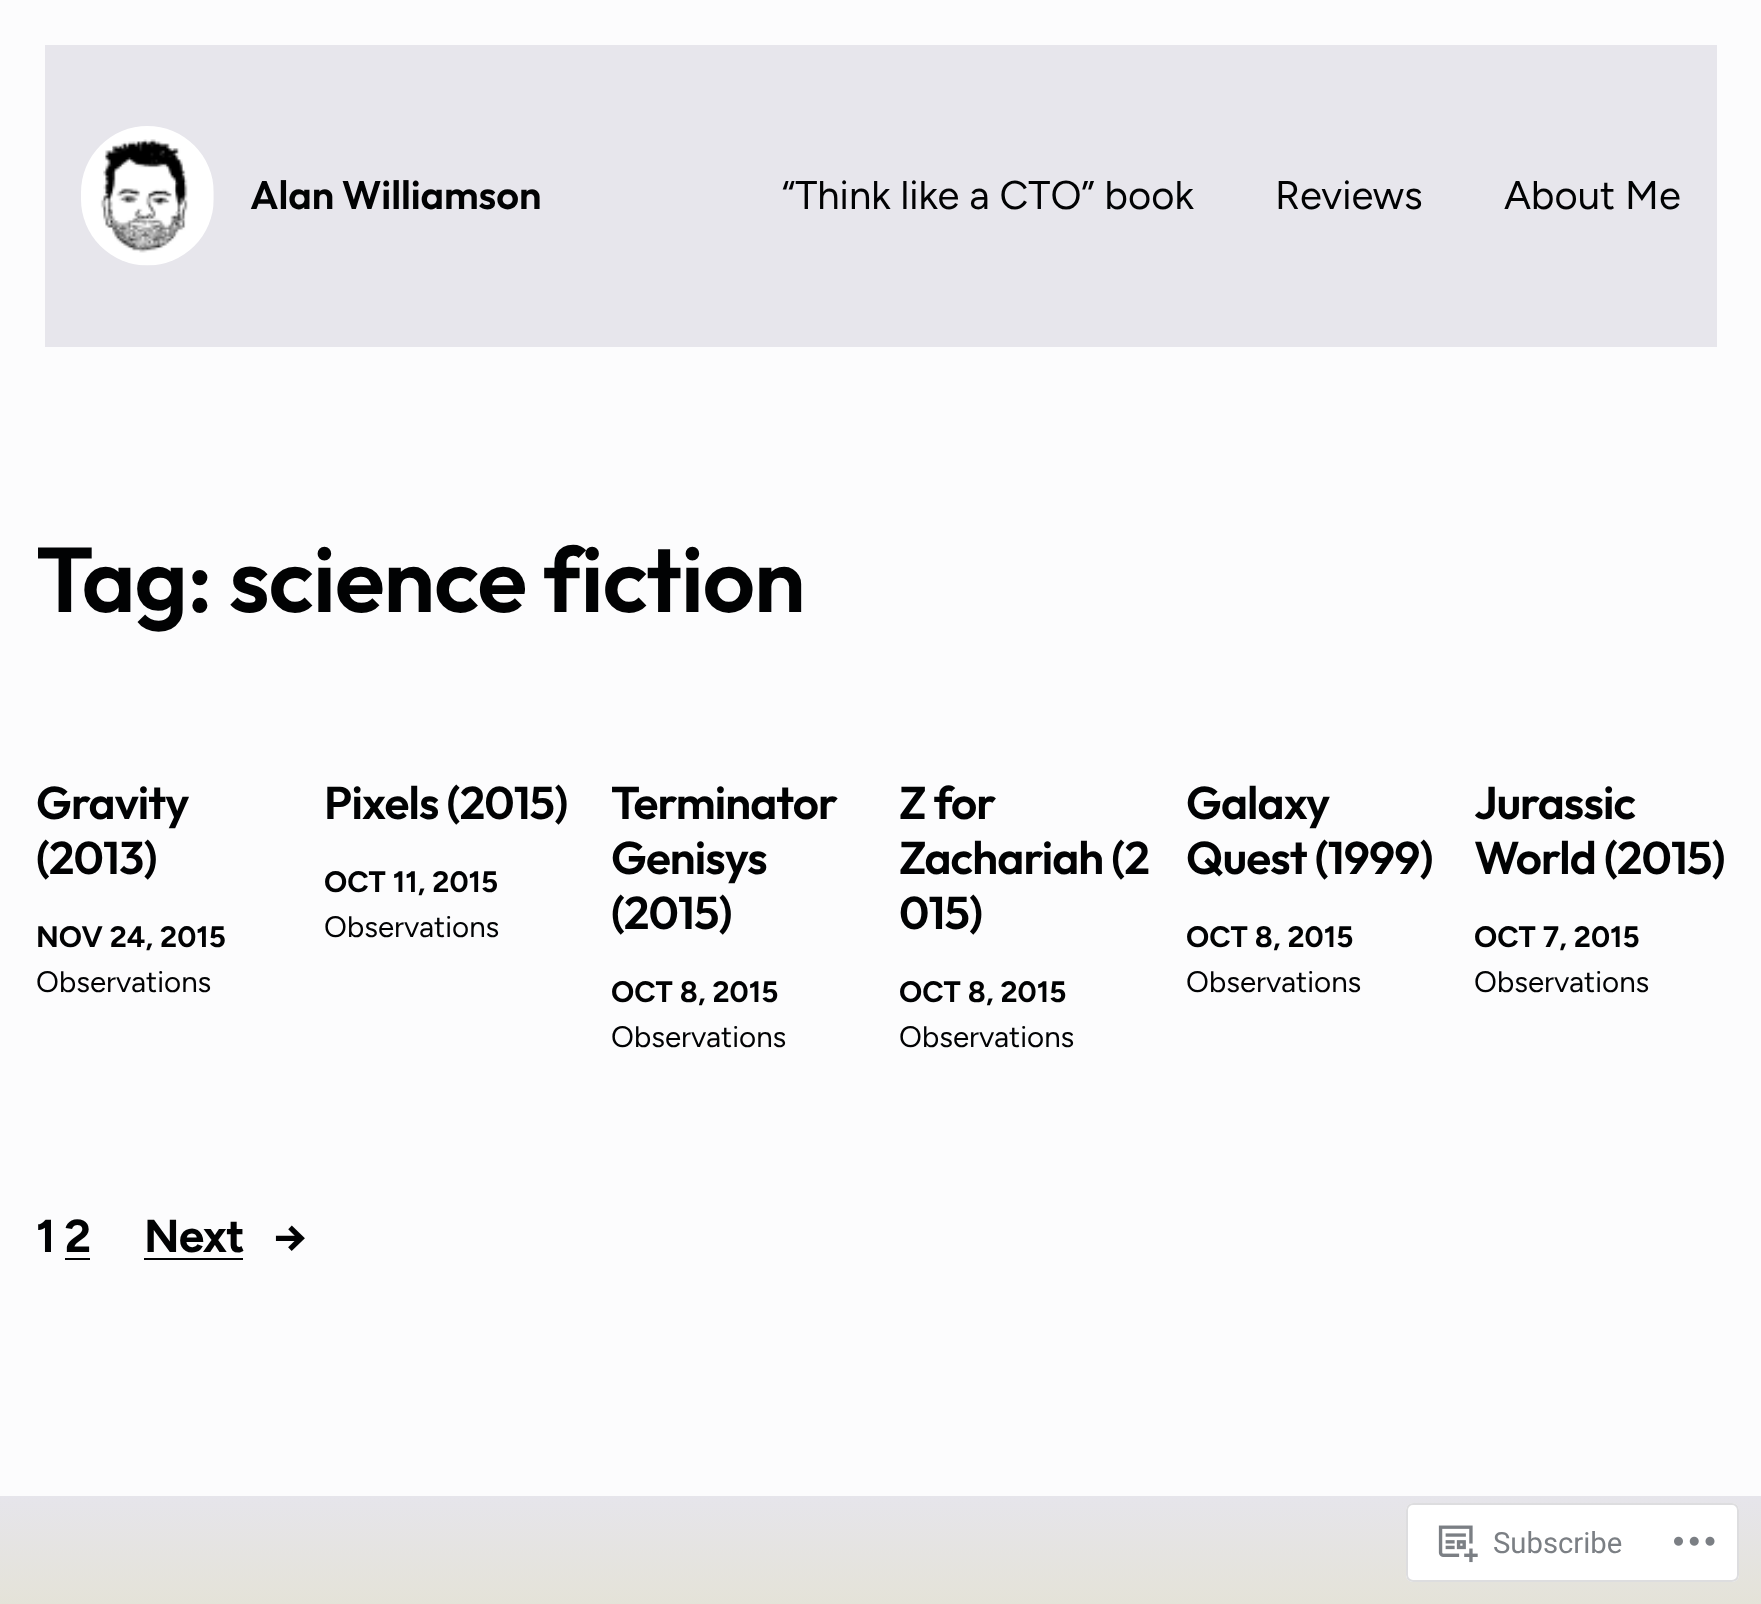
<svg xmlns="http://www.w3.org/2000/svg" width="1761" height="1604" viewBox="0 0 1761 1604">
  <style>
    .t1 { font: 600 40px Outfit; letter-spacing: -0.1px; fill: #010203; }
    .t2 { font: 40px Figtree; fill: #010203; }
    .t3 { font: 600 91.75px Outfit; letter-spacing: -0.9px; fill: #010203; }
    .t4 { font: 600 46px Outfit; letter-spacing: -0.9px; fill: #010203; }
    .t5 { font: bold 29.5px Figtree; fill: #010203; }
    .t6 { font: 29.5px Figtree; fill: #010203; }
    .t7 { font: bold 46px Figtree; letter-spacing: -0.9px; fill: #010203; }
    .t8 { font: 29.25px Roboto; fill: #7b7f84; }
  </style>
  <defs>
    <linearGradient id="g1" gradientUnits="userSpaceOnUse" x1="881" y1="1496" x2="881" y2="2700"><stop offset="0" stop-color="#e6e5eb"/><stop offset="1" stop-color="#d3ca1a"/></linearGradient>
  </defs>
  <rect width="100%" height="100%" fill="#fcfcfd"/>
  <rect x="45" y="45" width="1672" height="302" fill="#e7e6ec"/>
  <image x="81" y="126" width="133" height="140" href="images/1.png"/>
  <text x="250" y="209" class="t1">Alan Williamson</text>
  <text x="782" y="209" class="t2">“Think like a CTO” book</text>
  <text x="1275" y="209" class="t2">Reviews</text>
  <text x="1504" y="209" class="t2">About Me</text>
  <text x="36" y="612" class="t3">Tag: science fiction</text>
  <text x="36" y="819" class="t4">Gravity</text>
  <text x="36" y="874" class="t4">(2013)</text>
  <text x="36" y="947" class="t5">NOV 24, 2015</text>
  <text x="36" y="992" class="t6">Observations</text>
  <text x="324" y="819" class="t4">Pixels (2015)</text>
  <text x="324" y="892" class="t5">OCT 11, 2015</text>
  <text x="324" y="937" class="t6">Observations</text>
  <text x="611" y="819" class="t4">Terminator</text>
  <text x="611" y="874" class="t4">Genisys</text>
  <text x="611" y="929" class="t4">(2015)</text>
  <text x="611" y="1002" class="t5">OCT 8, 2015</text>
  <text x="611" y="1047" class="t6">Observations</text>
  <text x="899" y="819" class="t4">Z for</text>
  <text x="899" y="874" class="t4">Zachariah (2</text>
  <text x="899" y="929" class="t4">015)</text>
  <text x="899" y="1002" class="t5">OCT 8, 2015</text>
  <text x="899" y="1047" class="t6">Observations</text>
  <text x="1186" y="819" class="t4">Galaxy</text>
  <text x="1186" y="874" class="t4">Quest (1999)</text>
  <text x="1186" y="947" class="t5">OCT 8, 2015</text>
  <text x="1186" y="992" class="t6">Observations</text>
  <text x="1474" y="819" class="t4">Jurassic</text>
  <text x="1474" y="874" class="t4">World (2015)</text>
  <text x="1474" y="947" class="t5">OCT 7, 2015</text>
  <text x="1474" y="992" class="t6">Observations</text>
  <text x="36" y="1252" class="t7">1 2</text>
  <rect x="65" y="1258" width="25" height="2" fill="#010203"/>
  <text x="144" y="1252" class="t7">Next</text>
  <rect x="144" y="1258" width="99" height="2" fill="#010203"/>
  <text x="273" y="1252" class="t7">→</text>
  <rect x="0" y="1496" width="1761" height="108" fill="url(#g1)"/>
  <rect x="1406" y="1503" width="333" height="79" rx="7" fill="#fffffffa"/>
  <rect x="1407" y="1504" width="331" height="77" rx="6" fill="none" stroke="#dcdcdefa" stroke-width="2"/>
  <image x="1438" y="1525" width="40" height="38" href="images/2.png"/>
  <text x="1493" y="1553" class="t8">Subscribe</text>
  <image x="1674" y="1536" width="41" height="10" href="images/3.png"/>
</svg>
